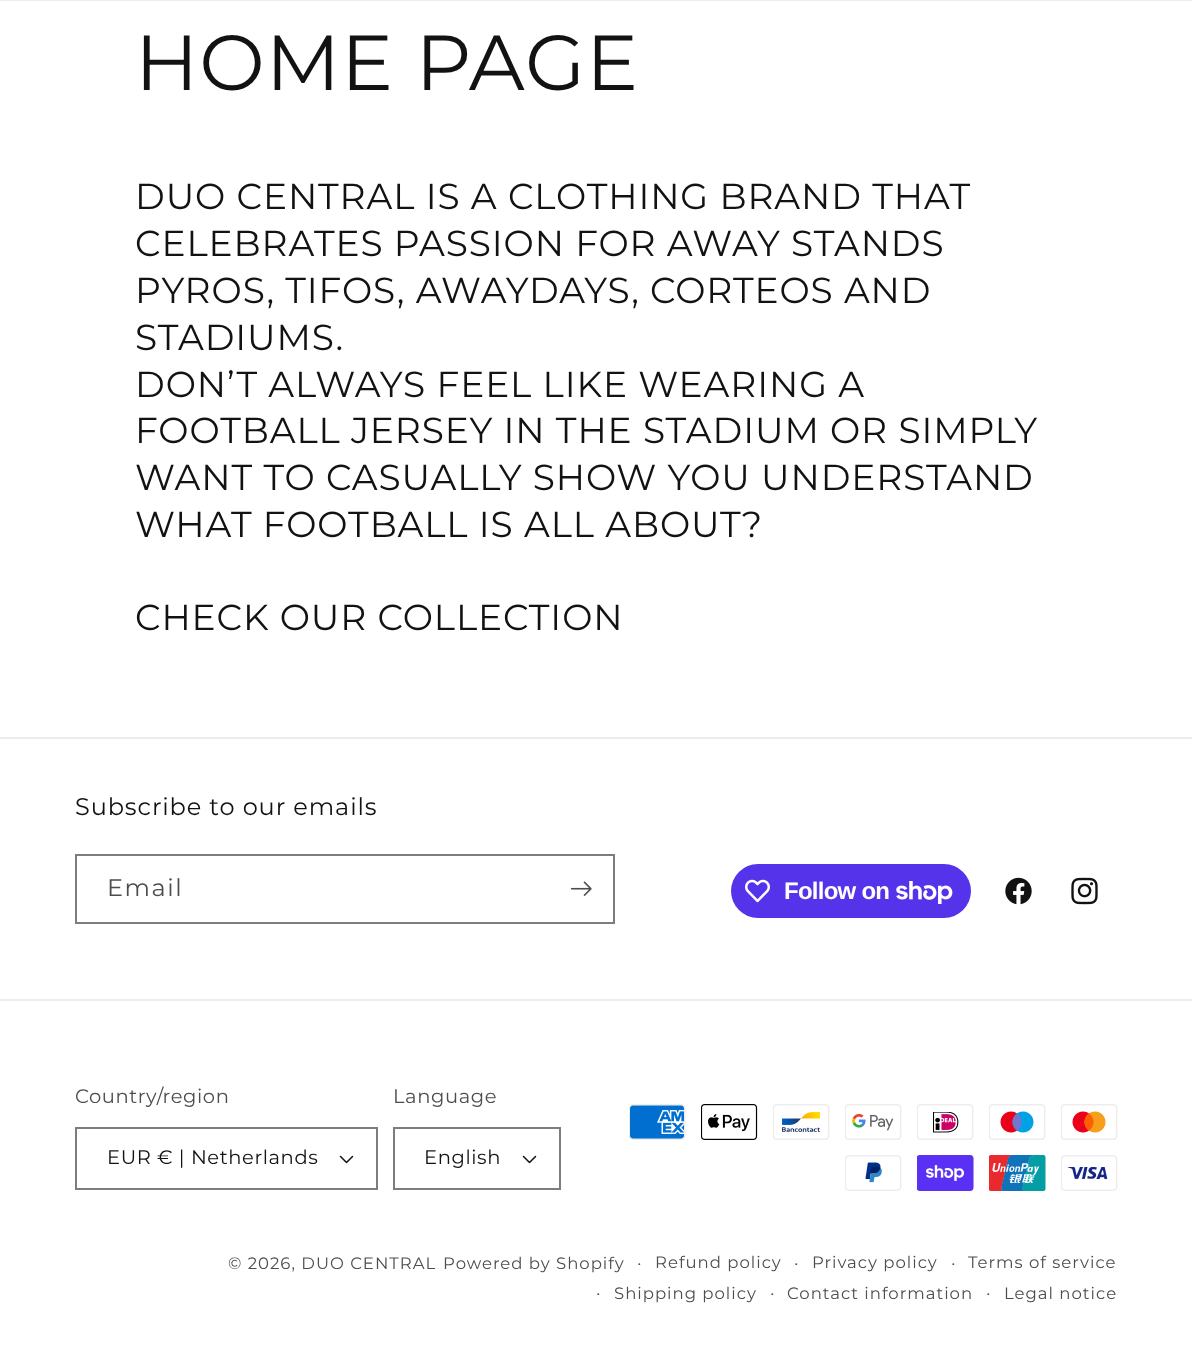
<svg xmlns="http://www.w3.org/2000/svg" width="1192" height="1363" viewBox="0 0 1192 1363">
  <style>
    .t1 { font: 78px Montserrat; letter-spacing: 0.9px; fill: #121212; }
    .t2 { font: 36px Montserrat; letter-spacing: 0.9px; fill: #121212; }
    .t3 { font: 24px Montserrat; letter-spacing: 0.9px; fill: #121212; }
    .t4 { font: 24px Montserrat; letter-spacing: 1.5px; fill: #4d4d4d; }
    .t5 { font: bold 24px Liberation Sans; letter-spacing: -0.75px; fill: #fff; }
    .t6 { font: 19.5px Montserrat; letter-spacing: 0.6px; fill: #4d4d4d; }
    .t7 { font: 19.5px Montserrat; letter-spacing: 0.6px; fill: #121212; }
    .t8 { font: 16.5px Montserrat; letter-spacing: 1px; fill: #4d4d4d; }
    .t9 { font: 18px Montserrat; letter-spacing: 1px; fill: #4d4d4d; }
  </style>
  <rect width="100%" height="100%" fill="#fff"/>
  <rect x="0" y="0" width="1192" height="1" fill="#ececec"/>
  <text x="135" y="90" class="t1">HOME PAGE</text>
  <text x="135" y="209" class="t2">DUO CENTRAL IS A CLOTHING BRAND THAT</text>
  <text x="135" y="256" class="t2">CELEBRATES PASSION FOR AWAY STANDS</text>
  <text x="135" y="303" class="t2">PYROS, TIFOS, AWAYDAYS, CORTEOS AND</text>
  <text x="135" y="350" class="t2">STADIUMS.</text>
  <text x="135" y="397" class="t2">DON’T ALWAYS FEEL LIKE WEARING A</text>
  <text x="135" y="443" class="t2">FOOTBALL JERSEY IN THE STADIUM OR SIMPLY</text>
  <text x="135" y="490" class="t2">WANT TO CASUALLY SHOW YOU UNDERSTAND</text>
  <text x="135" y="537" class="t2">WHAT FOOTBALL IS ALL ABOUT?</text>
  <text x="135" y="630" class="t2">CHECK OUR COLLECTION</text>
  <rect x="0" y="737" width="1192" height="2" fill="#ececec"/>
  <text x="75" y="815" class="t3">Subscribe to our emails</text>
  <rect x="76" y="855" width="538" height="68" fill="none" stroke="#7d7d7d" stroke-width="2"/>
  <text x="107" y="896" class="t4">Email</text>
  <image x="570" y="881" width="22" height="15" href="images/1.png"/>
  <rect x="731" y="864" width="240" height="54" rx="27" fill="#5433eb"/>
  <image x="745" y="879" width="25" height="24" href="images/2.png"/>
  <text x="784" y="899" class="t5">Follow on</text>
  <image x="896" y="881" width="57" height="23" href="images/3.png"/>
  <image x="1005" y="877" width="27" height="28" href="images/4.png"/>
  <image x="1071" y="877" width="27" height="28" href="images/5.png"/>
  <rect x="0" y="999" width="1192" height="2" fill="#ececec"/>
  <text x="75" y="1103" class="t6">Country/region</text>
  <image x="339" y="1155" width="15" height="9" href="images/6.png"/>
  <rect x="76" y="1128" width="301" height="61" fill="none" stroke="#7d7d7d" stroke-width="2"/>
  <text x="107" y="1164" class="t7">EUR € | Netherlands</text>
  <text x="393" y="1103" class="t6">Language</text>
  <image x="522" y="1155" width="15" height="9" href="images/6.png"/>
  <rect x="394" y="1128" width="166" height="61" fill="none" stroke="#7d7d7d" stroke-width="2"/>
  <text x="424" y="1164" class="t7">English</text>
  <image x="629" y="1104" width="57" height="36" href="images/7.png"/>
  <image x="701" y="1104" width="57" height="36" href="images/8.png"/>
  <image x="773" y="1104" width="57" height="36" href="images/9.png"/>
  <image x="845" y="1104" width="57" height="36" href="images/10.png"/>
  <image x="917" y="1104" width="57" height="36" href="images/11.png"/>
  <image x="989" y="1104" width="57" height="36" href="images/12.png"/>
  <image x="1061" y="1104" width="57" height="36" href="images/13.png"/>
  <image x="845" y="1155" width="57" height="36" href="images/14.png"/>
  <image x="917" y="1155" width="57" height="36" href="images/15.png"/>
  <image x="989" y="1155" width="57" height="36" href="images/16.png"/>
  <image x="1061" y="1155" width="57" height="36" href="images/17.png"/>
  <text x="228" y="1269" class="t8">© 2026, DUO CENTRAL</text>
  <text x="443" y="1269" class="t8">Powered by Shopify</text>
  <text x="637" y="1269" class="t9">·</text>
  <text x="655" y="1268" class="t8">Refund policy</text>
  <text x="794" y="1269" class="t9">·</text>
  <text x="812" y="1268" class="t8">Privacy policy</text>
  <text x="951" y="1269" class="t9">·</text>
  <text x="968" y="1268" class="t8">Terms of service</text>
  <text x="596" y="1299" class="t9">·</text>
  <text x="614" y="1299" class="t8">Shipping policy</text>
  <text x="770" y="1299" class="t9">·</text>
  <text x="787" y="1299" class="t8">Contact information</text>
  <text x="986" y="1299" class="t9">·</text>
  <text x="1004" y="1299" class="t8">Legal notice</text>
</svg>
